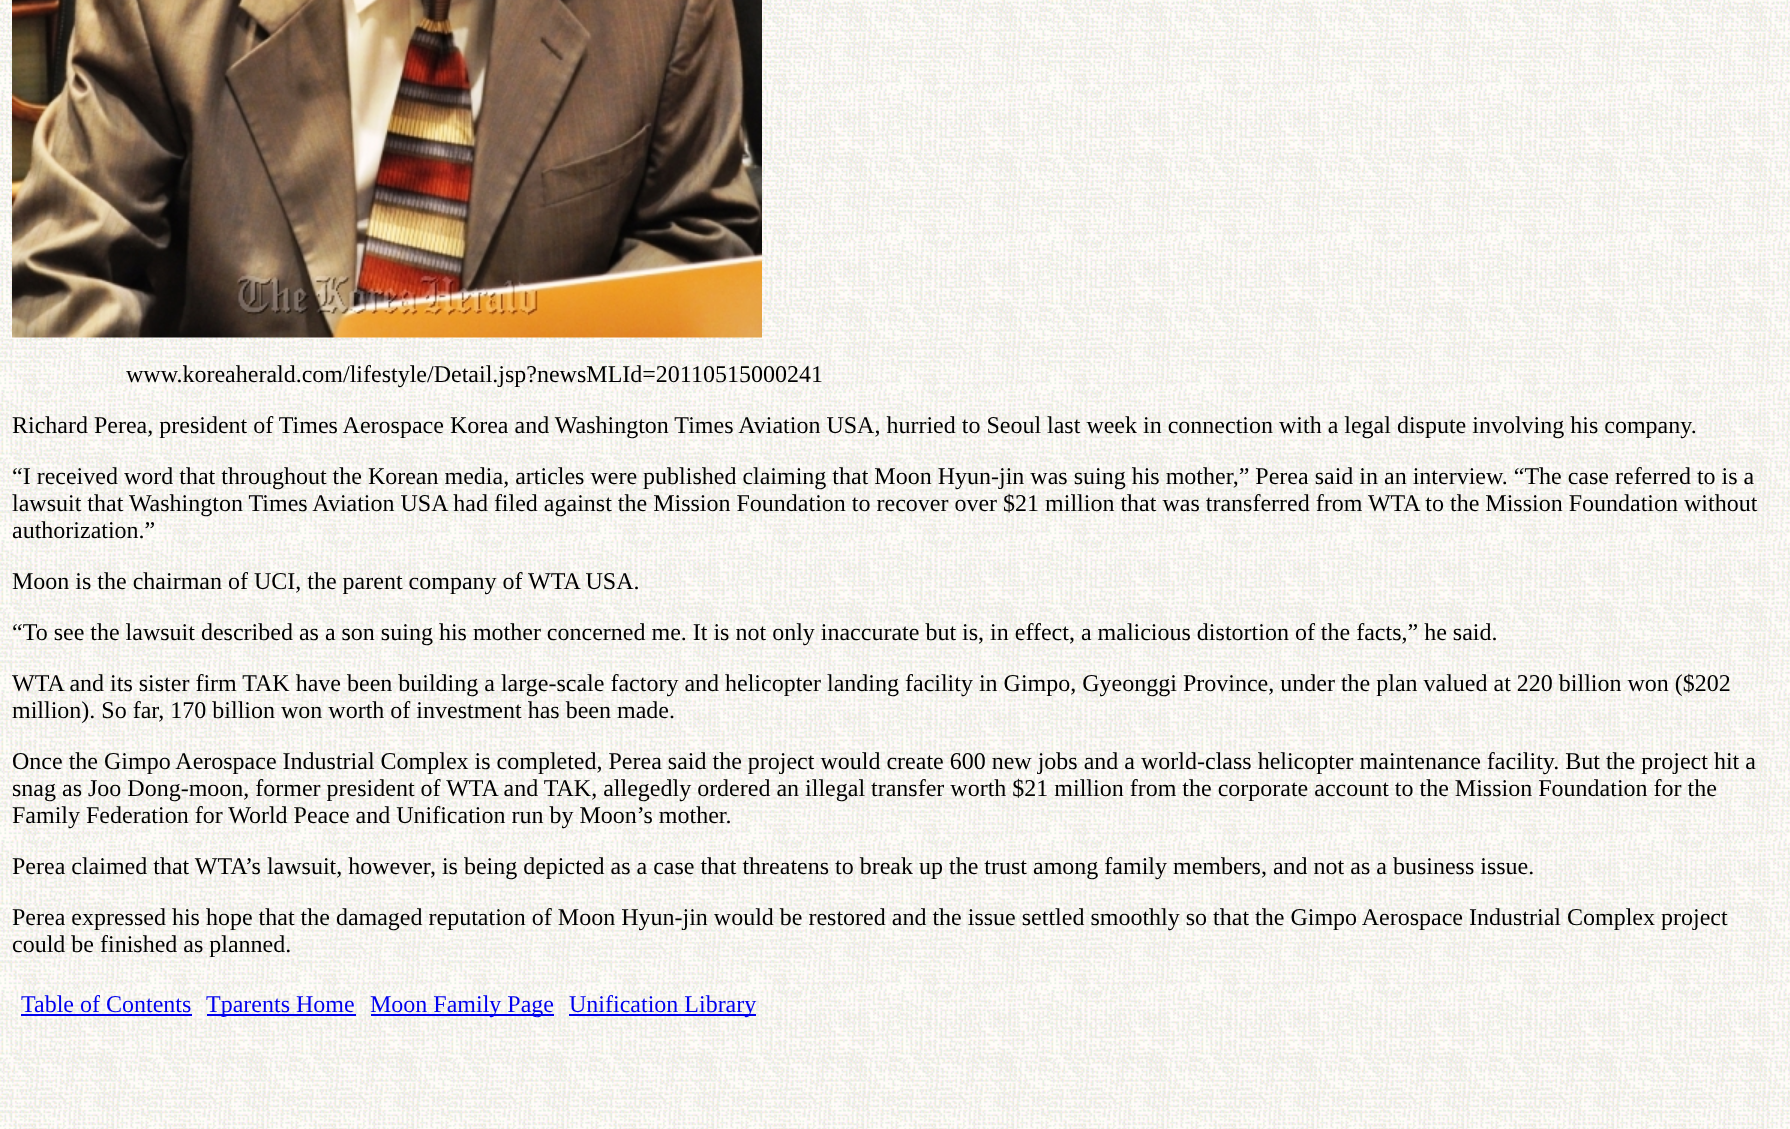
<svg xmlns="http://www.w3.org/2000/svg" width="1790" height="1129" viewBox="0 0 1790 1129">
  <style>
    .t1 { font: 24px Liberation Serif; fill: #000; }
    .t2 { font: 24px Liberation Serif; fill: #00e; }
  </style>
  <rect width="100%" height="100%" fill="#fff"/>
  <image x="0" y="0" width="1790" height="1129" href="images/1.png"/>
  <image x="12" y="0" width="750" height="338" href="images/2.png"/>
  <text x="126" y="382" class="t1">www.koreaherald.com/lifestyle/Detail.jsp?newsMLId=20110515000241</text>
  <text x="12" y="433" class="t1">Richard Perea, president of Times Aerospace Korea and Washington Times Aviation USA, hurried to Seoul last week in connection with a legal dispute involving his company.</text>
  <text x="12" y="484" class="t1">“I received word that throughout the Korean media, articles were published claiming that Moon Hyun-jin was suing his mother,” Perea said in an interview. “The case referred to is a</text>
  <text x="12" y="511" class="t1">lawsuit that Washington Times Aviation USA had filed against the Mission Foundation to recover over $21 million that was transferred from WTA to the Mission Foundation without</text>
  <text x="12" y="538" class="t1">authorization.”</text>
  <text x="12" y="589" class="t1">Moon is the chairman of UCI, the parent company of WTA USA.</text>
  <text x="12" y="640" class="t1">“To see the lawsuit described as a son suing his mother concerned me. It is not only inaccurate but is, in effect, a malicious distortion of the facts,” he said.</text>
  <text x="12" y="691" class="t1">WTA and its sister firm TAK have been building a large-scale factory and helicopter landing facility in Gimpo, Gyeonggi Province, under the plan valued at 220 billion won ($202</text>
  <text x="12" y="718" class="t1">million). So far, 170 billion won worth of investment has been made.</text>
  <text x="12" y="769" class="t1">Once the Gimpo Aerospace Industrial Complex is completed, Perea said the project would create 600 new jobs and a world-class helicopter maintenance facility. But the project hit a</text>
  <text x="12" y="796" class="t1">snag as Joo Dong-moon, former president of WTA and TAK, allegedly ordered an illegal transfer worth $21 million from the corporate account to the Mission Foundation for the</text>
  <text x="12" y="823" class="t1">Family Federation for World Peace and Unification run by Moon’s mother.</text>
  <text x="12" y="874" class="t1">Perea claimed that WTA’s lawsuit, however, is being depicted as a case that threatens to break up the trust among family members, and not as a business issue.</text>
  <text x="12" y="925" class="t1">Perea expressed his hope that the damaged reputation of Moon Hyun-jin would be restored and the issue settled smoothly so that the Gimpo Aerospace Industrial Complex project</text>
  <text x="12" y="952" class="t1">could be finished as planned.</text>
  <text x="21" y="1012" class="t2">Table of Contents</text>
  <rect x="21" y="1014" width="171" height="2" fill="#00e"/>
  <rect x="207" y="1014" width="149" height="2" fill="#00e"/>
  <text x="206" y="1012" class="t2">Tparents Home</text>
  <rect x="371" y="1014" width="183" height="2" fill="#00e"/>
  <text x="370" y="1012" class="t2">Moon Family Page</text>
  <rect x="569" y="1014" width="187" height="2" fill="#00e"/>
  <text x="569" y="1012" class="t2">Unification Library</text>
</svg>
